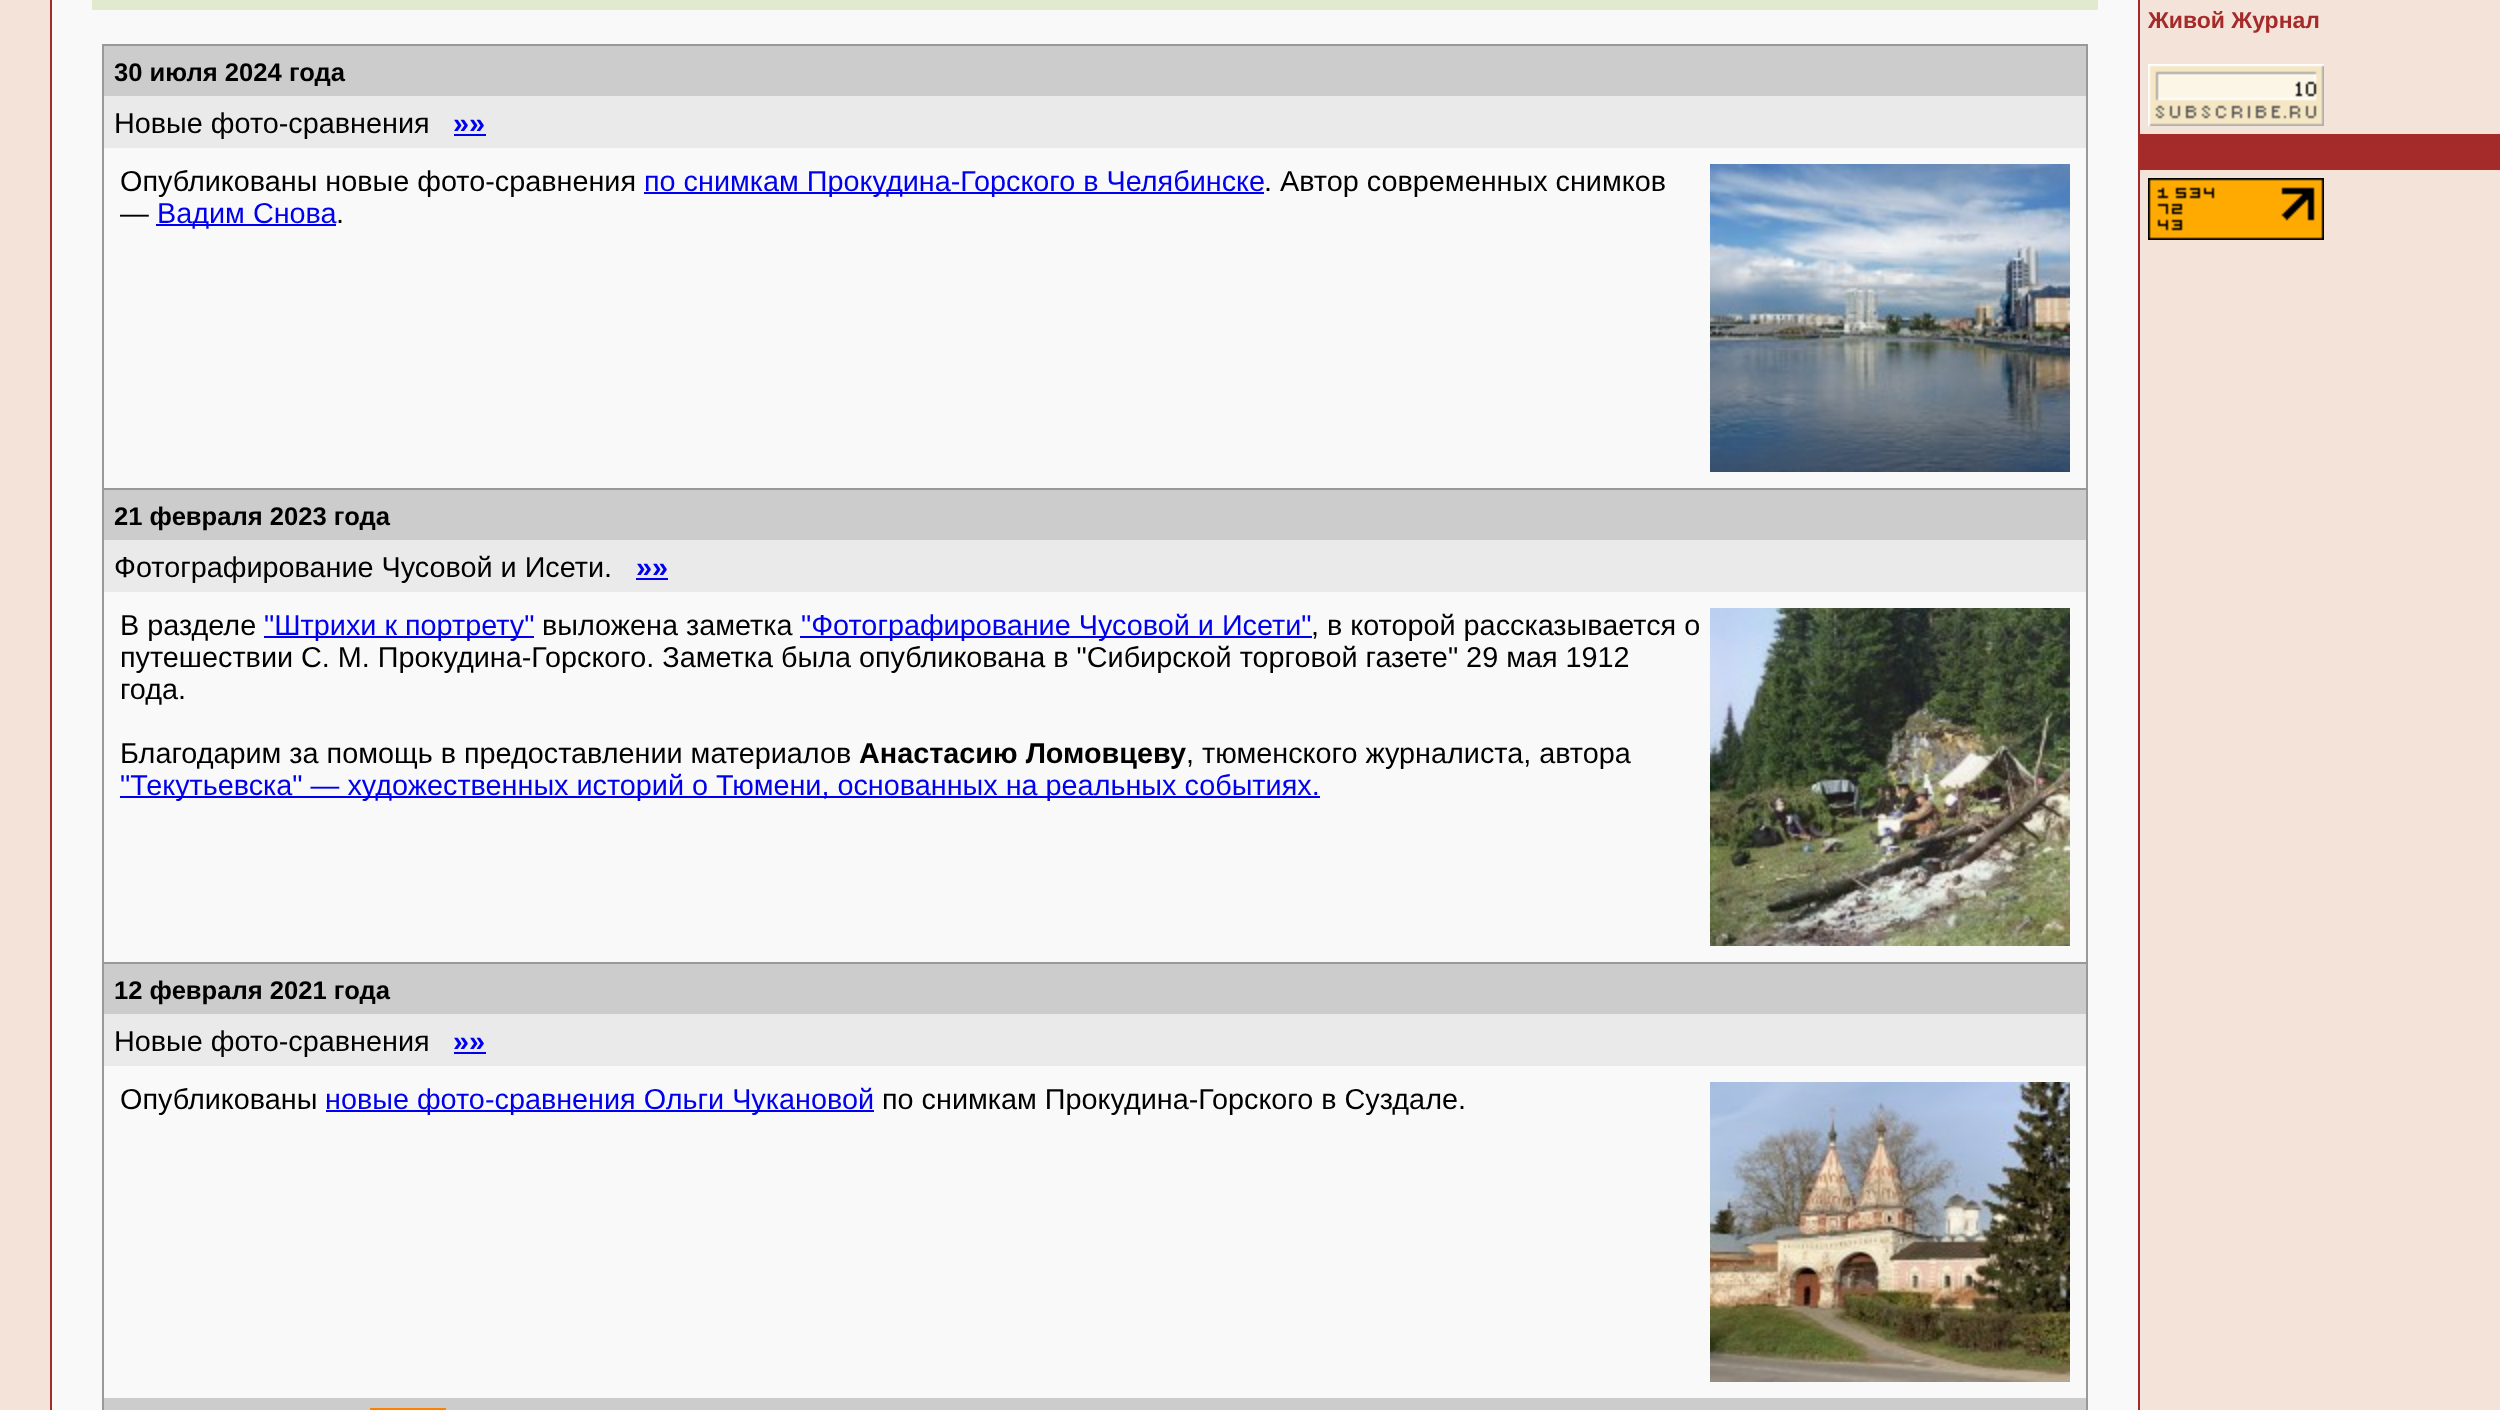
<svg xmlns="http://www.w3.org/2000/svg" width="2500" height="1410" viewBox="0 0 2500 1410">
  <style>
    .t1 { font: bold 23px Liberation Sans; fill: #a52a2a; }
    .t2 { font: bold 25.6px Liberation Sans; fill: #000; }
    .t3 { font: 28.8px Liberation Sans; fill: #000; }
    .t4 { font: bold 28.8px Liberation Sans; fill: #00e; }
    .t5 { font: 28.8px Liberation Sans; fill: #00e; }
    .t6 { font: bold 28.8px Liberation Sans; fill: #000; }
  </style>
  <rect width="100%" height="100%" fill="#f4e3d9"/>
  <rect x="50" y="0" width="2" height="1410" fill="#a52a2a"/>
  <rect x="2138" y="0" width="2" height="1410" fill="#a52a2a"/>
  <text x="2148" y="28" class="t1">Живой Журнал</text>
  <image x="2148" y="64" width="176" height="62" href="images/1.png"/>
  <rect x="2140" y="134" width="360" height="36" fill="#a52a2a"/>
  <image x="2148" y="178" width="176" height="62" href="images/2.png"/>
  <rect x="52" y="0" width="2086" height="1410" fill="#f9f9f9"/>
  <rect x="92" y="0" width="2006" height="10" fill="#e1eace"/>
  <rect x="104" y="46" width="1982" height="50" fill="#ccc"/>
  <rect x="102" y="44" width="1986" height="2" fill="#999"/>
  <rect x="2086" y="44" width="2" height="444" fill="#999"/>
  <rect x="102" y="44" width="2" height="444" fill="#999"/>
  <text x="114" y="81" class="t2">30 июля 2024 года</text>
  <rect x="104" y="96" width="1982" height="52" fill="#eaeaea"/>
  <text x="114" y="133" class="t3">Новые фото-сравнения</text>
  <text x="453" y="133" class="t4">»»</text>
  <rect x="454" y="134" width="32" height="2" fill="#00e"/>
  <text x="120" y="191" class="t3">Опубликованы новые фото-сравнения</text>
  <rect x="644" y="192" width="620" height="2" fill="#00e"/>
  <text x="644" y="191" class="t5">по снимкам Прокудина-Горского в Челябинске</text>
  <text x="1264" y="191" class="t3">. Автор современных снимков</text>
  <text x="120" y="223" class="t3">—</text>
  <rect x="156" y="224" width="180" height="2" fill="#00e"/>
  <text x="157" y="223" class="t5">Вадим Снова</text>
  <text x="336" y="223" class="t3">.</text>
  <image x="1710" y="164" width="360" height="308" href="images/3.png"/>
  <rect x="104" y="490" width="1982" height="50" fill="#ccc"/>
  <rect x="102" y="488" width="1986" height="2" fill="#999"/>
  <rect x="2086" y="488" width="2" height="474" fill="#999"/>
  <rect x="102" y="488" width="2" height="474" fill="#999"/>
  <text x="114" y="525" class="t2">21 февраля 2023 года</text>
  <rect x="104" y="540" width="1982" height="52" fill="#eaeaea"/>
  <text x="114" y="577" class="t3">Фотографирование Чусовой и Исети.</text>
  <text x="636" y="577" class="t4">»»</text>
  <rect x="636" y="578" width="32" height="2" fill="#00e"/>
  <text x="120" y="635" class="t3">В разделе</text>
  <rect x="264" y="636" width="270" height="2" fill="#00e"/>
  <text x="264" y="635" class="t5">"Штрихи к портрету"</text>
  <text x="542" y="635" class="t3">выложена заметка</text>
  <rect x="800" y="636" width="512" height="2" fill="#00e"/>
  <text x="801" y="635" class="t5">"Фотографирование Чусовой и Исети"</text>
  <text x="1311" y="635" class="t3">, в которой рассказывается о</text>
  <text x="120" y="667" class="t3">путешествии С. М. Прокудина-Горского. Заметка была опубликована в "Сибирской торговой газете" 29 мая 1912</text>
  <text x="120" y="699" class="t3">года.</text>
  <text x="120" y="763" class="t3">Благодарим за помощь в предоставлении материалов</text>
  <text x="859" y="763" class="t6">Анастасию Ломовцеву</text>
  <text x="1186" y="763" class="t3">, тюменского журналиста, автора</text>
  <rect x="120" y="796" width="1200" height="2" fill="#00e"/>
  <text x="120" y="795" class="t5">"Текутьевска" — художественных историй о Тюмени, основанных на реальных событиях.</text>
  <image x="1710" y="608" width="360" height="338" href="images/4.png"/>
  <rect x="104" y="964" width="1982" height="50" fill="#ccc"/>
  <rect x="102" y="962" width="1986" height="2" fill="#999"/>
  <rect x="2086" y="962" width="2" height="448" fill="#999"/>
  <rect x="102" y="962" width="2" height="448" fill="#999"/>
  <text x="114" y="999" class="t2">12 февраля 2021 года</text>
  <rect x="104" y="1014" width="1982" height="52" fill="#eaeaea"/>
  <text x="114" y="1051" class="t3">Новые фото-сравнения</text>
  <text x="453" y="1051" class="t4">»»</text>
  <rect x="454" y="1052" width="32" height="2" fill="#00e"/>
  <text x="120" y="1109" class="t3">Опубликованы</text>
  <rect x="326" y="1110" width="548" height="2" fill="#00e"/>
  <text x="325" y="1109" class="t5">новые фото-сравнения Ольги Чукановой</text>
  <text x="882" y="1109" class="t3">по снимкам Прокудина-Горского в Суздале.</text>
  <image x="1710" y="1082" width="360" height="300" href="images/5.png"/>
  <rect x="104" y="1398" width="1982" height="12" fill="#ccc"/>
  <rect x="370" y="1408" width="76" height="2" fill="#ff8000"/>
</svg>
